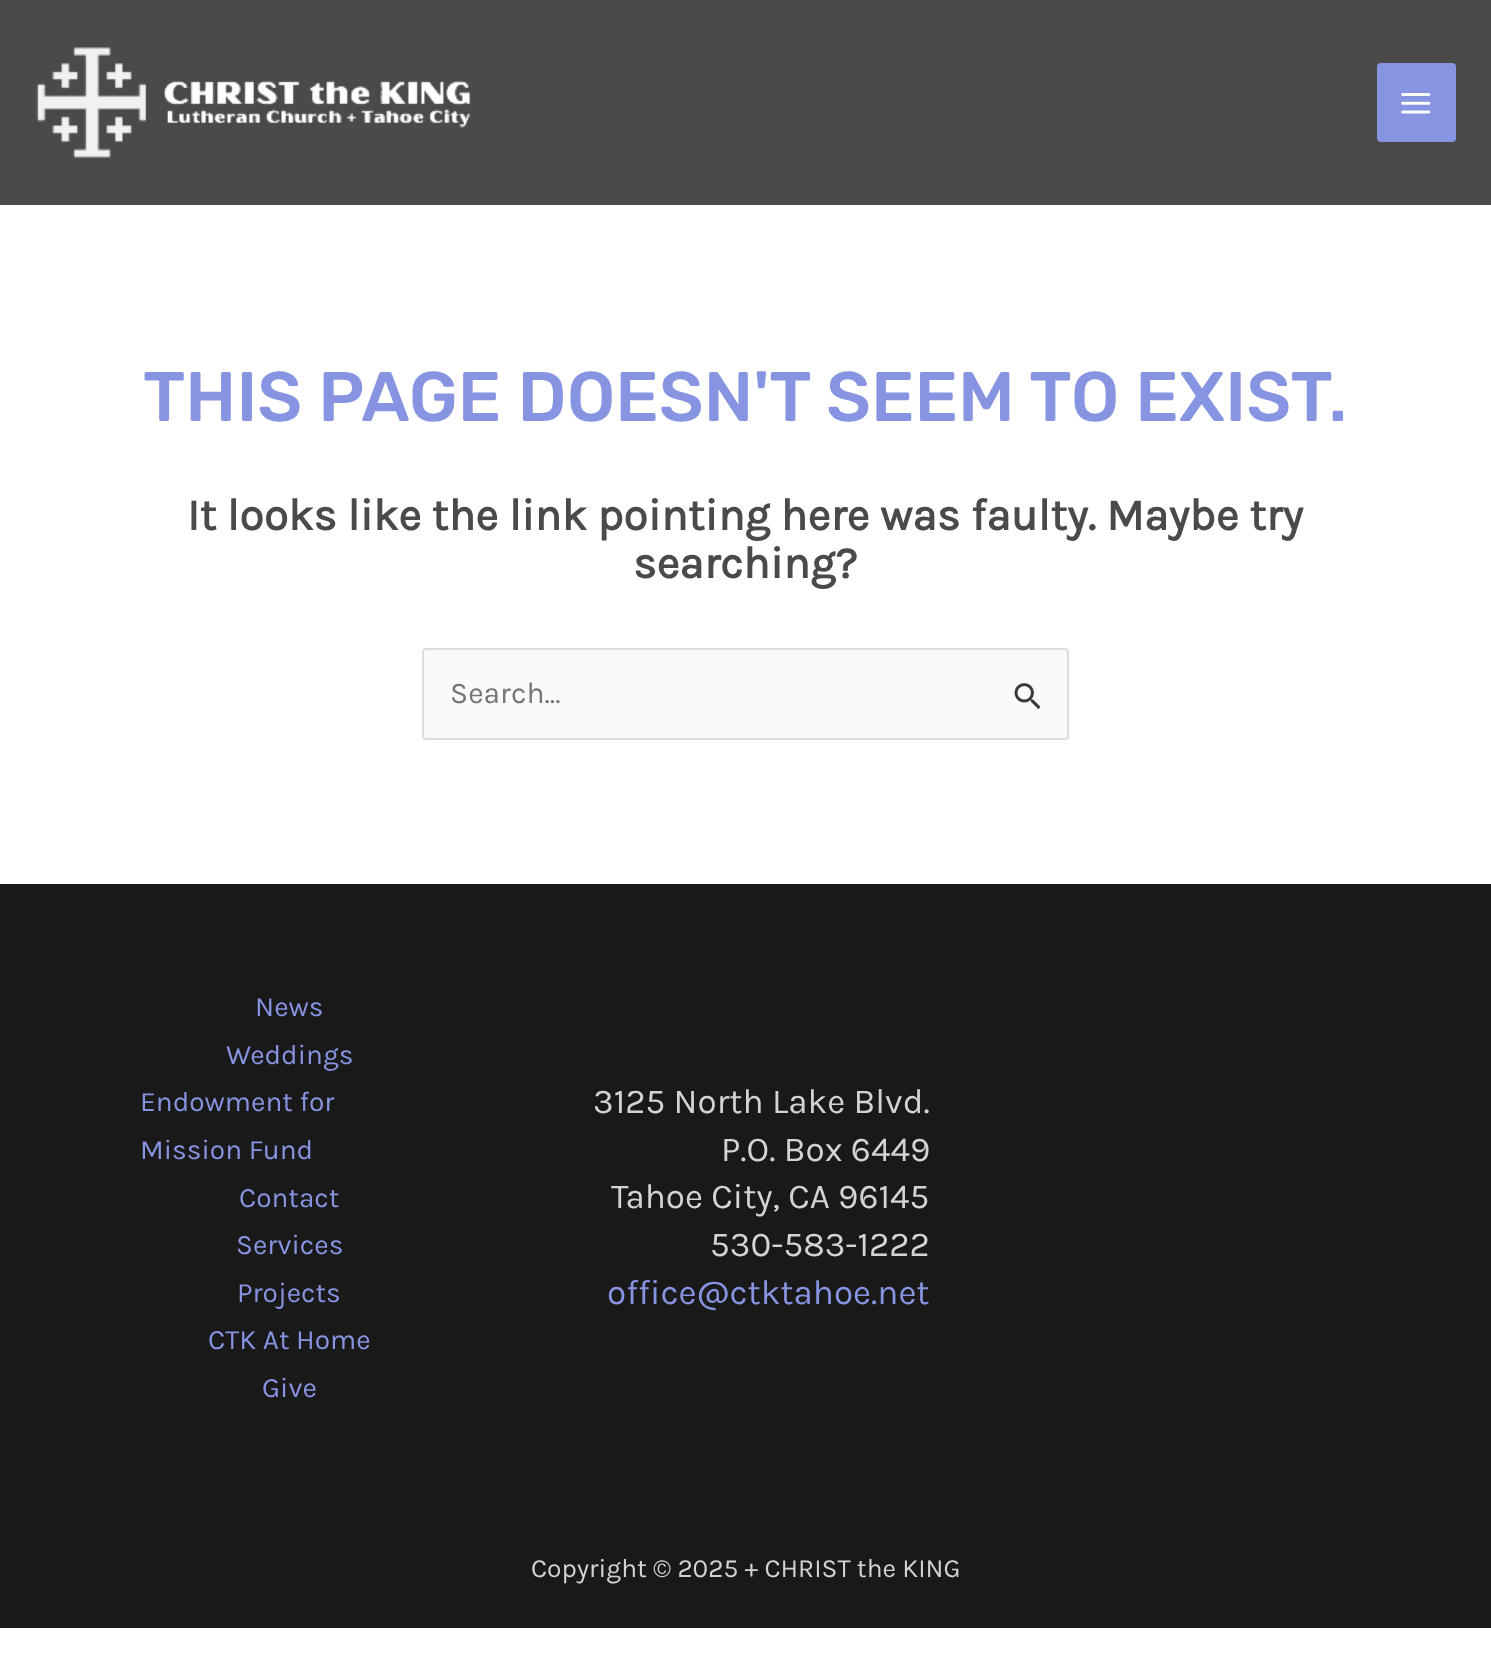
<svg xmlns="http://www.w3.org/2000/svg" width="1491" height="1659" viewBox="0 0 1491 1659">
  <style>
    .t1 { font: 500 70px Rubik; fill: #8694e2; }
    .t2 { font: bold 44.6px Karla; fill: #4a4a4a; }
    .t3 { font: 30px Karla; fill: #757575; }
    .t4 { font: 28px Karla; fill: #8694e2; }
    .t5 { font: 35px Karla; fill: #d3d3d3; }
    .t6 { font: 35px Karla; fill: #8694e2; }
    .t7 { font: 26.25px Karla; fill: #d3d3d3; }
  </style>
  <rect width="100%" height="100%" fill="#fff"/>
  <rect x="0" y="0" width="1491" height="205" fill="#4a4a4a"/>
  <image x="36" y="47" width="435" height="111" href="images/1.png"/>
  <rect x="1377" y="63" width="79" height="79" rx="4" fill="#8694e2"/>
  <image x="1401" y="93" width="30" height="21" href="images/2.png"/>
  <text x="143" y="421" class="t1">THIS PAGE DOESN'T SEEM TO EXIST.</text>
  <text x="187" y="530" class="t2">It looks like the link pointing here was faulty. Maybe try</text>
  <text x="633" y="578" class="t2">searching?</text>
  <rect x="423" y="649" width="645" height="90" rx="3" fill="#fafafa" stroke="#ddd" stroke-width="2"/>
  <text x="450" y="703" class="t3">Search...</text>
  <image x="1014" y="683" width="26" height="27" href="images/3.png"/>
  <rect x="0" y="884" width="1491" height="744" fill="#191919"/>
  <text x="255" y="1016" class="t4">News</text>
  <text x="226" y="1064" class="t4">Weddings</text>
  <text x="140" y="1111" class="t4">Endowment for</text>
  <text x="140" y="1159" class="t4">Mission Fund</text>
  <text x="239" y="1207" class="t4">Contact</text>
  <text x="236" y="1254" class="t4">Services</text>
  <text x="237" y="1302" class="t4">Projects</text>
  <text x="208" y="1349" class="t4">CTK At Home</text>
  <text x="262" y="1397" class="t4">Give</text>
  <text x="593" y="1113" class="t5">3125 North Lake Blvd.</text>
  <text x="721" y="1161" class="t5">P.O. Box 6449</text>
  <text x="611" y="1208" class="t5">Tahoe City, CA 96145</text>
  <text x="710" y="1256" class="t5">530-583-1222</text>
  <text x="607" y="1304" class="t6">office@ctktahoe.net</text>
  <text x="531" y="1577" class="t7">Copyright © 2025 + CHRIST the KING</text>
</svg>
